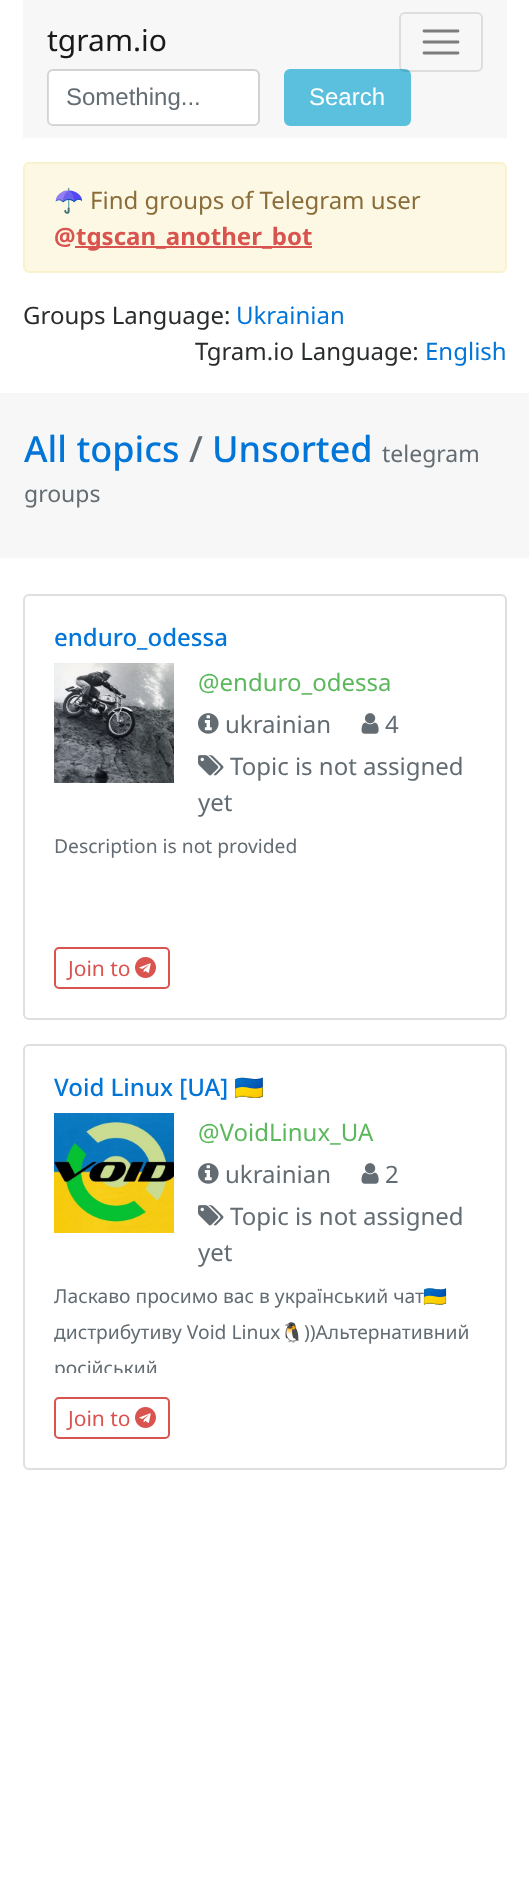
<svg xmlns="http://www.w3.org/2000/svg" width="529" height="1898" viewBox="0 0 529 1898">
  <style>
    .t1 { font: 30px Noto Sans; fill: #191919; }
    .t2 { font: 24px Liberation Sans; fill: #636c72; }
    .t3 { font: 24px Liberation Sans; fill: #fff; }
    .t4 { font: 24px Noto Color Emoji; fill: #8a6d3b; }
    .t5 { font: 24px Noto Sans; fill: #8a6d3b; }
    .t6 { font: bold 24px Noto Sans; fill: #d9534f; }
    .t7 { font: 24px Noto Sans; fill: #292b2c; }
    .t8 { font: 24px Noto Sans; fill: #0275d8; }
    .t9 { font: 500 36px Noto Sans; fill: #0275d8; }
    .t10 { font: 500 36px Noto Sans; fill: #636c72; }
    .t11 { font: 23px Noto Sans; fill: #636c72; }
    .t12 { font: 500 24px Noto Sans; fill: #0275d8; }
    .t13 { font: 24px Noto Sans; fill: #5cb85c; }
    .t14 { font: 24px Noto Sans; fill: #636c72; }
    .t15 { font: 19.25px Noto Sans; fill: #636c72; }
    .t16 { font: 21px Noto Sans; fill: #d9534f; }
    .t17 { font: 24px Noto Color Emoji; fill: #0275d8; }
    .t18 { font: 19.25px Noto Color Emoji; fill: #636c72; }
  </style>
  <defs>
    <clipPath id="clip1"><rect x="54" y="1076" width="422" height="25"/></clipPath>
    <clipPath id="clip2"><rect x="54" y="1275" width="422" height="98"/></clipPath>
  </defs>
  <rect width="100%" height="100%" fill="#fff"/>
  <rect x="23" y="0" width="484" height="138" fill="#f7f7f7"/>
  <text x="47" y="51" class="t1">tgram.io</text>
  <rect x="285" y="70" width="125" height="55" rx="5" fill="#5bc0de" stroke="#5bc0de" stroke-width="2"/>
  <rect x="400" y="13" width="82" height="58" rx="5" fill="none" stroke="#0000001a" stroke-width="2"/>
  <path d="M424 31H458M424 42H458M424 53H458" fill="none" stroke="#7c7c7c" stroke-width="2.8" stroke-linecap="round"/>
  <rect x="48" y="71" width="210" height="54" rx="5" fill="#fff"/>
  <rect x="48" y="70" width="211" height="55" rx="5" fill="none" stroke="#00000026" stroke-width="2"/>
  <text x="66" y="105" class="t2">Something...</text>
  <text x="309" y="105" class="t3">Search</text>
  <rect x="24" y="163" width="482" height="109" rx="5" fill="#fcf8e3" stroke="#faf2cc" stroke-width="2"/>
  <text x="54" y="209" class="t4">☂️</text>
  <text x="90" y="209" class="t5">Find groups of Telegram user</text>
  <text x="54" y="245" class="t6">@</text>
  <rect x="75" y="246" width="237" height="2" fill="#d9534f"/>
  <text x="76" y="245" class="t6">tgscan_another_bot</text>
  <text x="23" y="324" class="t7">Groups Language:</text>
  <text x="236" y="324" class="t8">Ukrainian</text>
  <text x="195" y="360" class="t7">Tgram.io Language:</text>
  <text x="425" y="360" class="t8">English</text>
  <rect x="0" y="393" width="529" height="165" fill="#f7f7f7"/>
  <text x="24" y="462" class="t9">All topics</text>
  <text x="189" y="462" class="t10">/</text>
  <text x="212" y="462" class="t9">Unsorted</text>
  <text x="382" y="462" class="t11">telegram</text>
  <text x="24" y="502" class="t11">groups</text>
  <rect x="24" y="595" width="482" height="424" rx="5" fill="none" stroke="#dfdfdf" stroke-width="2"/>
  <text x="54" y="646" class="t12">enduro_odessa</text>
  <image x="54" y="663" width="120" height="120" href="images/1.png"/>
  <text x="198" y="691" class="t13">@enduro_odessa</text>
  <image x="198" y="713" width="21" height="21" href="images/2.png"/>
  <text x="225" y="733" class="t14">ukrainian</text>
  <image x="361" y="713" width="18" height="21" href="images/3.png"/>
  <text x="385" y="733" class="t14">4</text>
  <image x="198" y="755" width="26" height="21" href="images/4.png"/>
  <text x="230" y="775" class="t14">Topic is not assigned</text>
  <text x="198" y="811" class="t14">yet</text>
  <text x="54" y="853" class="t15">Description is not provided</text>
  <rect x="55" y="948" width="114" height="40" rx="4" fill="none" stroke="#d9534f" stroke-width="2"/>
  <text x="68" y="976" class="t16">Join to</text>
  <image x="135" y="957" width="21" height="21" href="images/5.png"/>
  <rect x="24" y="1045" width="482" height="424" rx="5" fill="none" stroke="#dfdfdf" stroke-width="2"/>
  <text x="54" y="1096" class="t12">Void Linux [UA]</text>
  <g clip-path="url(#clip1)">
    <text x="234" y="1096" class="t17">🇺🇦</text>
  </g>
  <image x="54" y="1113" width="120" height="120" href="images/6.png"/>
  <text x="198" y="1141" class="t13">@VoidLinux_UA</text>
  <image x="198" y="1163" width="21" height="21" href="images/2.png"/>
  <text x="225" y="1183" class="t14">ukrainian</text>
  <image x="361" y="1163" width="18" height="21" href="images/3.png"/>
  <text x="385" y="1183" class="t14">2</text>
  <image x="198" y="1205" width="26" height="21" href="images/4.png"/>
  <text x="230" y="1225" class="t14">Topic is not assigned</text>
  <text x="198" y="1261" class="t14">yet</text>
  <text x="54" y="1303" class="t15">Ласкаво просимо вас в український чат</text>
  <text x="423" y="1303" class="t18">🇺🇦</text>
  <text x="54" y="1339" class="t15">дистрибутиву Void Linux</text>
  <text x="280" y="1339" class="t18">🐧</text>
  <text x="304" y="1339" class="t15">))Альтернативний</text>
  <g clip-path="url(#clip2)">
    <text x="54" y="1375" class="t15">російський</text>
  </g>
  <rect x="55" y="1398" width="114" height="40" rx="4" fill="none" stroke="#d9534f" stroke-width="2"/>
  <text x="68" y="1426" class="t16">Join to</text>
  <image x="135" y="1407" width="21" height="21" href="images/5.png"/>
</svg>
